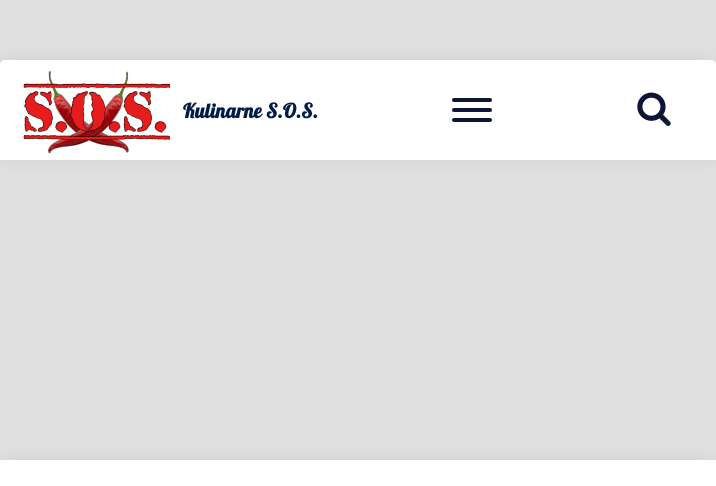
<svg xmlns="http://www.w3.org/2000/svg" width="716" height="486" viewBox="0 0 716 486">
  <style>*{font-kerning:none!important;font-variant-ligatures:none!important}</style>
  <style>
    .t1 { font: bold 20px Lobster; fill: #001b49; }
  </style>
  <rect width="100%" height="100%" fill="#e0e0e0"/>
  <rect x="-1" y="60" width="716" height="100" rx="5" fill="#00000012" filter="blur(8px)"/>
  <path d="M5 60H711C714 60 716 62 716 65V160H0V65C0 62 2 60 5 60Z" fill="#fff"/>
  <image x="23" y="71" width="148" height="83" href="images/1.png"/>
  <text x="183" y="118" class="t1">Kulinarne S.O.S.</text>
  <rect x="452" y="98" width="40" height="4" rx="2" fill="#0e1638"/>
  <rect x="452" y="108" width="40" height="4" rx="2" fill="#0e1638"/>
  <rect x="452" y="118" width="40" height="4" rx="2" fill="#0e1638"/>
  <image x="637" y="92" width="34" height="34" href="images/2.png"/>
  <rect x="-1" y="460" width="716" height="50" fill="#00000012" filter="blur(8px)"/>
  <rect x="0" y="460" width="716" height="26" fill="#fff"/>
</svg>
